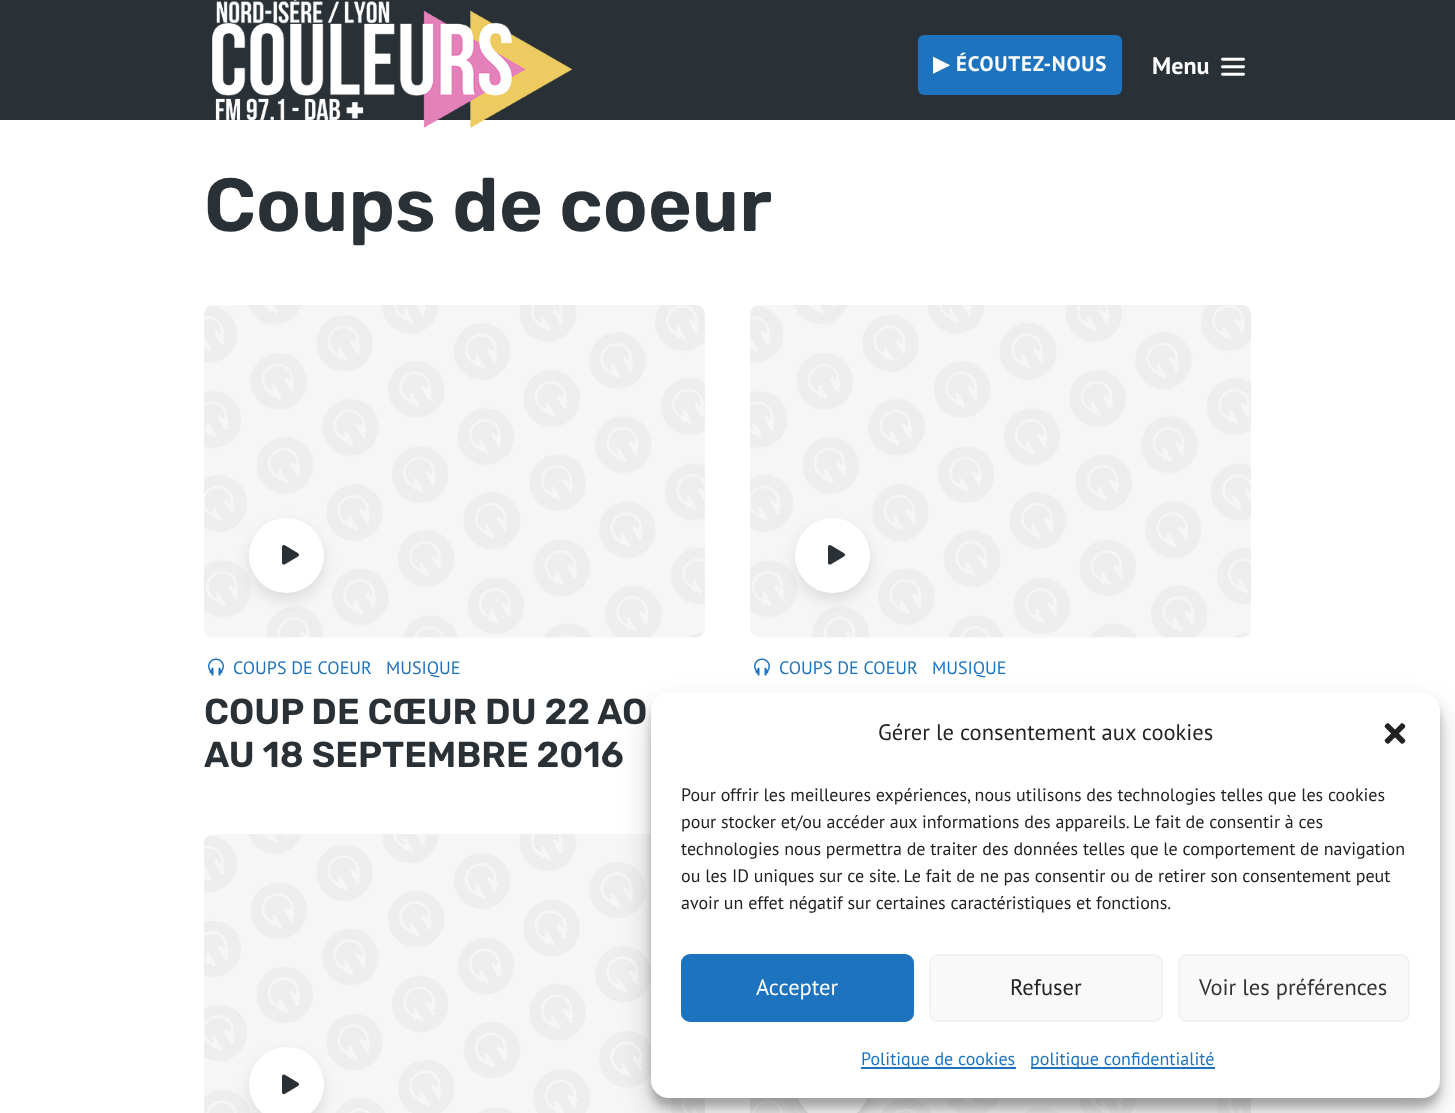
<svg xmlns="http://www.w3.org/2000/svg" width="1455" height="1113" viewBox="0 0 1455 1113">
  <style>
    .t1 { font: bold 21px DejaVu Sans; letter-spacing: 0.75px; fill: #fff; }
    .t2 { font: bold 21px PT Sans; letter-spacing: 0.75px; fill: #fff; }
    .t3 { font: bold 24px PT Sans; fill: #fff; }
    .t4 { font: 600 75px Rubik; fill: #293036; }
    .t5 { font: 18px PT Sans; fill: #1e73be; }
    .t6 { font: 600 36px Rubik; fill: #293036; }
    .t7 { font: 22.5px PT Sans; fill: #222; }
    .t8 { font: 18px PT Sans; fill: #222; }
    .t9 { font: 22.5px PT Sans; fill: #fff; }
    .t10 { font: 22.5px PT Sans; fill: #333; }
  </style>
  <rect width="100%" height="100%" fill="#fff"/>
  <rect x="0" y="0" width="1455" height="120" fill="#293036"/>
  <image x="212" y="0" width="361" height="128" href="images/1.png"/>
  <rect x="918" y="35" width="204" height="60" rx="6" fill="#1e73be"/>
  <text x="933" y="71" class="t1">▶︎</text>
  <text x="956" y="71" class="t2">ÉCOUTEZ-NOUS</text>
  <text x="1152" y="74" class="t3">Menu</text>
  <image x="1221" y="57" width="24" height="19" href="images/2.png"/>
  <text x="204" y="231" class="t4">Coups de coeur</text>
  <image x="204" y="305" width="501" height="333" href="images/3.png"/>
  <rect x="249" y="525" width="75" height="75" rx="37.5" fill="#0000001a" filter="blur(7.5px)"/>
  <circle cx="286.5" cy="555.5" r="37.5" fill="#fff"/>
  <image x="282" y="545" width="17" height="20" href="images/4.png"/>
  <image x="208" y="658" width="16" height="18" href="images/5.png"/>
  <text x="233" y="674" class="t5">COUPS DE COEUR</text>
  <text x="386" y="674" class="t5">MUSIQUE</text>
  <text x="204" y="724" class="t6">COUP DE CŒUR DU 22 AO</text>
  <text x="204" y="767" class="t6">AU 18 SEPTEMBRE 2016</text>
  <image x="750" y="305" width="501" height="333" href="images/3.png"/>
  <rect x="795" y="525" width="75" height="75" rx="37.5" fill="#0000001a" filter="blur(7.5px)"/>
  <circle cx="832.5" cy="555.5" r="37.5" fill="#fff"/>
  <image x="828" y="545" width="17" height="20" href="images/4.png"/>
  <image x="754" y="658" width="16" height="18" href="images/5.png"/>
  <text x="779" y="674" class="t5">COUPS DE COEUR</text>
  <text x="932" y="674" class="t5">MUSIQUE</text>
  <image x="204" y="834" width="501" height="279" href="images/6.png"/>
  <rect x="249" y="1055" width="75" height="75" rx="37.5" fill="#0000001a" filter="blur(7.5px)"/>
  <circle cx="286.5" cy="1084.5" r="37.5" fill="#fff"/>
  <image x="282" y="1074" width="17" height="21" href="images/7.png"/>
  <image x="750" y="1098" width="501" height="15" href="images/8.png"/>
  <rect x="795" y="1055" width="75" height="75" rx="37.5" fill="#0000001a" filter="blur(7.5px)"/>
  <circle cx="832.5" cy="1084.5" r="37.5" fill="#fff"/>
  <rect x="651" y="702" width="789" height="405" rx="18" fill="#0000003b" filter="blur(4.5px)"/>
  <rect x="651" y="708" width="789" height="405" rx="18" fill="#00000030" filter="blur(15px)"/>
  <rect x="651" y="693" width="789" height="405" rx="18" fill="#fff"/>
  <text x="878" y="740" class="t7">Gérer le consentement aux cookies</text>
  <image x="1384" y="723" width="22" height="21" href="images/9.png"/>
  <text x="681" y="801" class="t8">Pour offrir les meilleures expériences, nous utilisons des technologies telles que les cookies</text>
  <text x="681" y="828" class="t8">pour stocker et/ou accéder aux informations des appareils. Le fait de consentir à ces</text>
  <text x="681" y="855" class="t8">technologies nous permettra de traiter des données telles que le comportement de navigation</text>
  <text x="681" y="882" class="t8">ou les ID uniques sur ce site. Le fait de ne pas consentir ou de retirer son consentement peut</text>
  <text x="681" y="909" class="t8">avoir un effet négatif sur certaines caractéristiques et fonctions.</text>
  <rect x="682" y="955" width="231" height="66" rx="8" fill="#1e73be" stroke="#1e73be" stroke-width="2"/>
  <text x="756" y="995" class="t9">Accepter</text>
  <rect x="930" y="955" width="232" height="66" rx="8" fill="#f9f9f9" stroke="#f2f2f2" stroke-width="2"/>
  <text x="1010" y="995" class="t7">Refuser</text>
  <rect x="1179" y="955" width="230" height="66" rx="8" fill="#f9f9f9" stroke="#f2f2f2" stroke-width="2"/>
  <text x="1199" y="995" class="t10">Voir les préférences</text>
  <rect x="861" y="1067" width="155" height="2" fill="#1e73be"/>
  <text x="861" y="1065" class="t5">Politique de cookies</text>
  <rect x="1031" y="1067" width="184" height="2" fill="#1e73be"/>
  <text x="1030" y="1065" class="t5">politique confidentialité</text>
</svg>
